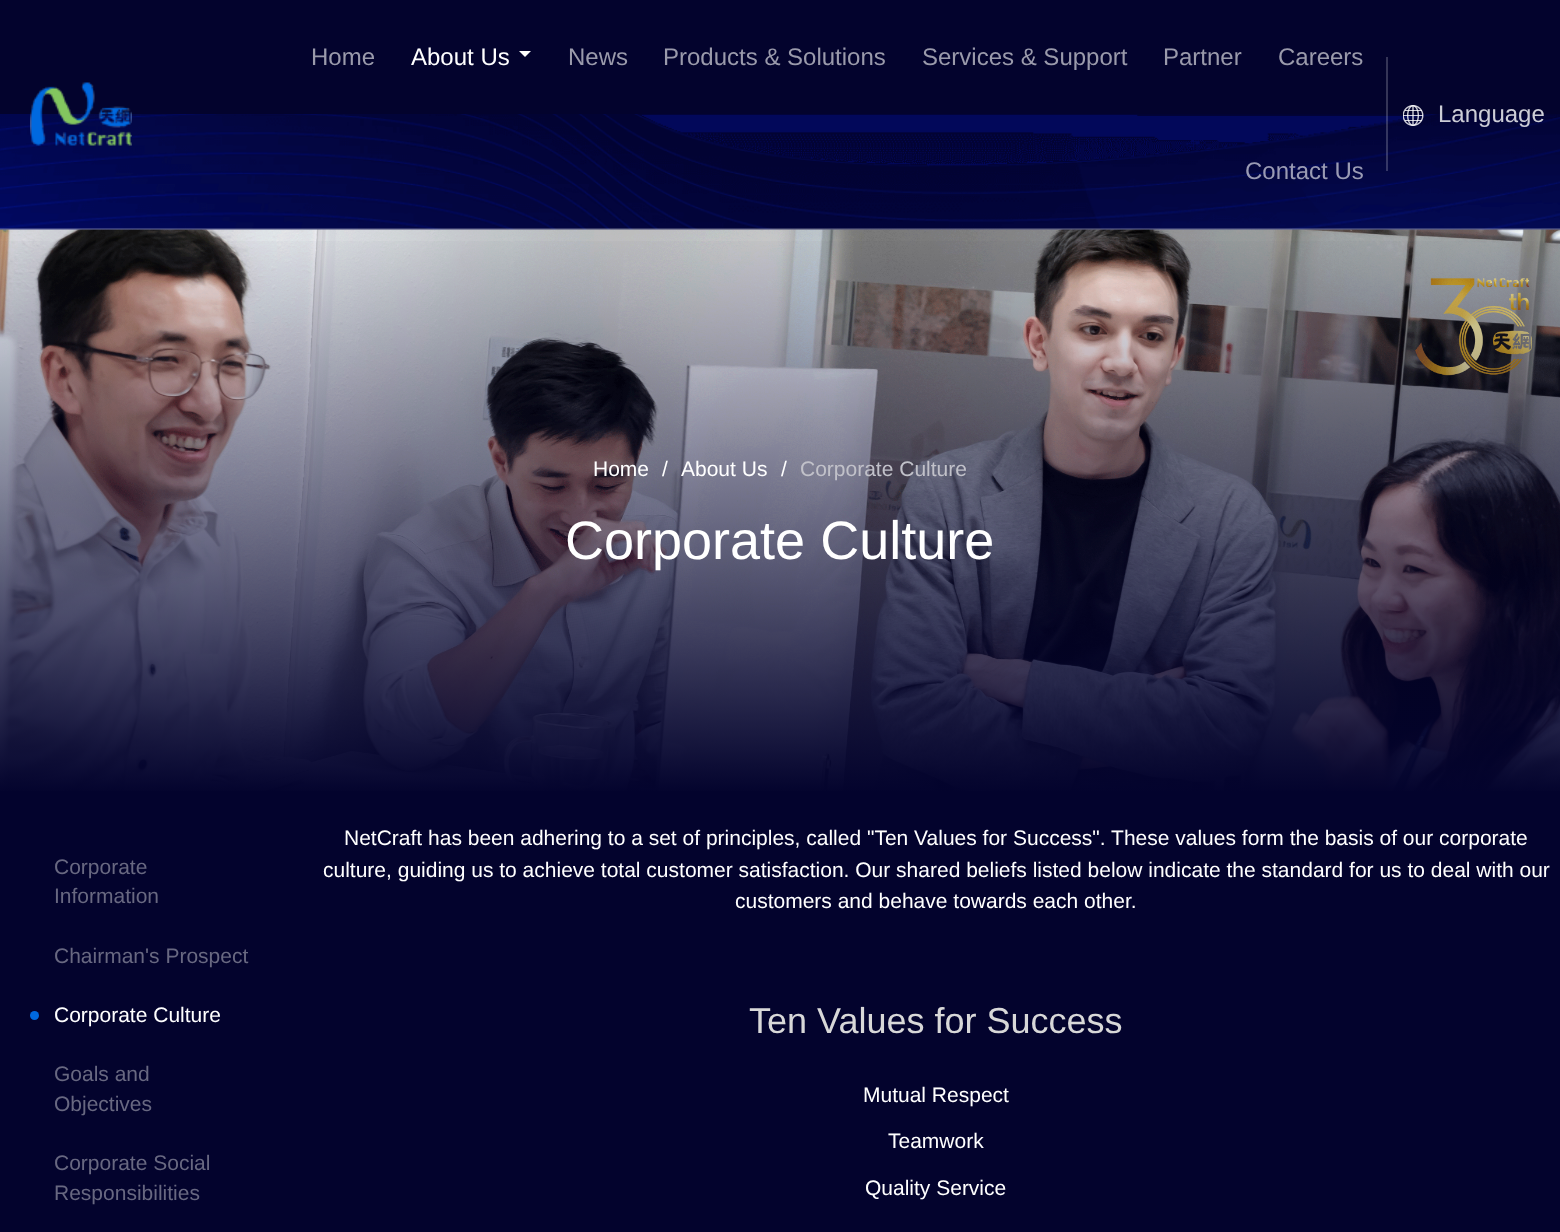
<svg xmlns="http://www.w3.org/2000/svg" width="1560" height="1232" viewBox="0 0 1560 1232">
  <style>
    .t1 { font: 24px Liberation Sans; fill: #9a9aab; }
    .t2 { font: 24px Liberation Sans; fill: #fff; }
    .t3 { font: 24px Liberation Sans; fill: #9a9bb4; }
    .t4 { font: 24px Liberation Sans; fill: #cccdd6; }
    .t5 { font: 21px Liberation Sans; fill: #fff; }
    .t6 { font: 21px Liberation Sans; fill: #c1c1c9; }
    .t7 { font: 54px Liberation Sans; fill: #fff; }
    .t8 { font: 21px Liberation Sans; fill: #686881; }
    .t9 { font: 36px Liberation Sans; fill: #d8d8d8; }
  </style>
  <defs>
    <linearGradient id="g1" gradientUnits="userSpaceOnUse" x1="780" y1="229" x2="780" y2="794"><stop offset="0" stop-color="#03032d" stop-opacity="0"/><stop offset="1" stop-color="#03032d"/></linearGradient>
  </defs>
  <rect width="100%" height="100%" fill="#03032d"/>
  <image x="0" y="114" width="1560" height="116" href="images/3.png"/>
  <image x="0" y="229" width="1560" height="562" href="images/4.png"/>
  <rect x="0" y="228" width="1560" height="2" fill="#ffffff33"/>
  <image x="30" y="82" width="102" height="64" href="images/1.png"/>
  <text x="311" y="65" class="t1">Home</text>
  <text x="411" y="65" class="t2">About Us</text>
  <path d="M519 51H531L525 57Z" fill="#fff"/>
  <text x="568" y="65" class="t1">News</text>
  <text x="663" y="65" class="t1">Products &amp; Solutions</text>
  <text x="922" y="65" class="t1">Services &amp; Support</text>
  <text x="1163" y="65" class="t1">Partner</text>
  <text x="1278" y="65" class="t1">Careers</text>
  <text x="1245" y="179" class="t3">Contact Us</text>
  <rect x="1386" y="57" width="2" height="114" fill="#ffffff33"/>
  <image x="1403" y="105" width="21" height="21" href="images/2.png"/>
  <text x="1438" y="122" class="t4">Language</text>
  <rect x="0" y="241" width="1560" height="550" fill="url(#g1)"/>
  <text x="593" y="476" class="t5">Home</text>
  <text x="662" y="476" class="t5">/</text>
  <text x="681" y="476" class="t5">About Us</text>
  <text x="781" y="476" class="t5">/</text>
  <text x="800" y="476" class="t6">Corporate Culture</text>
  <text x="565" y="559" class="t7">Corporate Culture</text>
  <text x="54" y="874" class="t8">Corporate</text>
  <text x="54" y="903" class="t8">Information</text>
  <text x="54" y="963" class="t8">Chairman's Prospect</text>
  <circle cx="34.5" cy="1015.5" r="4.5" fill="#0069df"/>
  <text x="54" y="1022" class="t5">Corporate Culture</text>
  <text x="54" y="1081" class="t8">Goals and</text>
  <text x="54" y="1111" class="t8">Objectives</text>
  <text x="54" y="1170" class="t8">Corporate Social</text>
  <text x="54" y="1200" class="t8">Responsibilities</text>
  <text x="344" y="845" class="t5">NetCraft has been adhering to a set of principles, called "Ten Values for Success". These values form the basis of our corporate</text>
  <text x="323" y="877" class="t5">culture, guiding us to achieve total customer satisfaction. Our shared beliefs listed below indicate the standard for us to deal with our</text>
  <text x="735" y="908" class="t5">customers and behave towards each other.</text>
  <text x="749" y="1033" class="t9">Ten Values for Success</text>
  <text x="863" y="1102" class="t5">Mutual Respect</text>
  <text x="888" y="1148" class="t5">Teamwork</text>
  <text x="865" y="1195" class="t5">Quality Service</text>
</svg>
